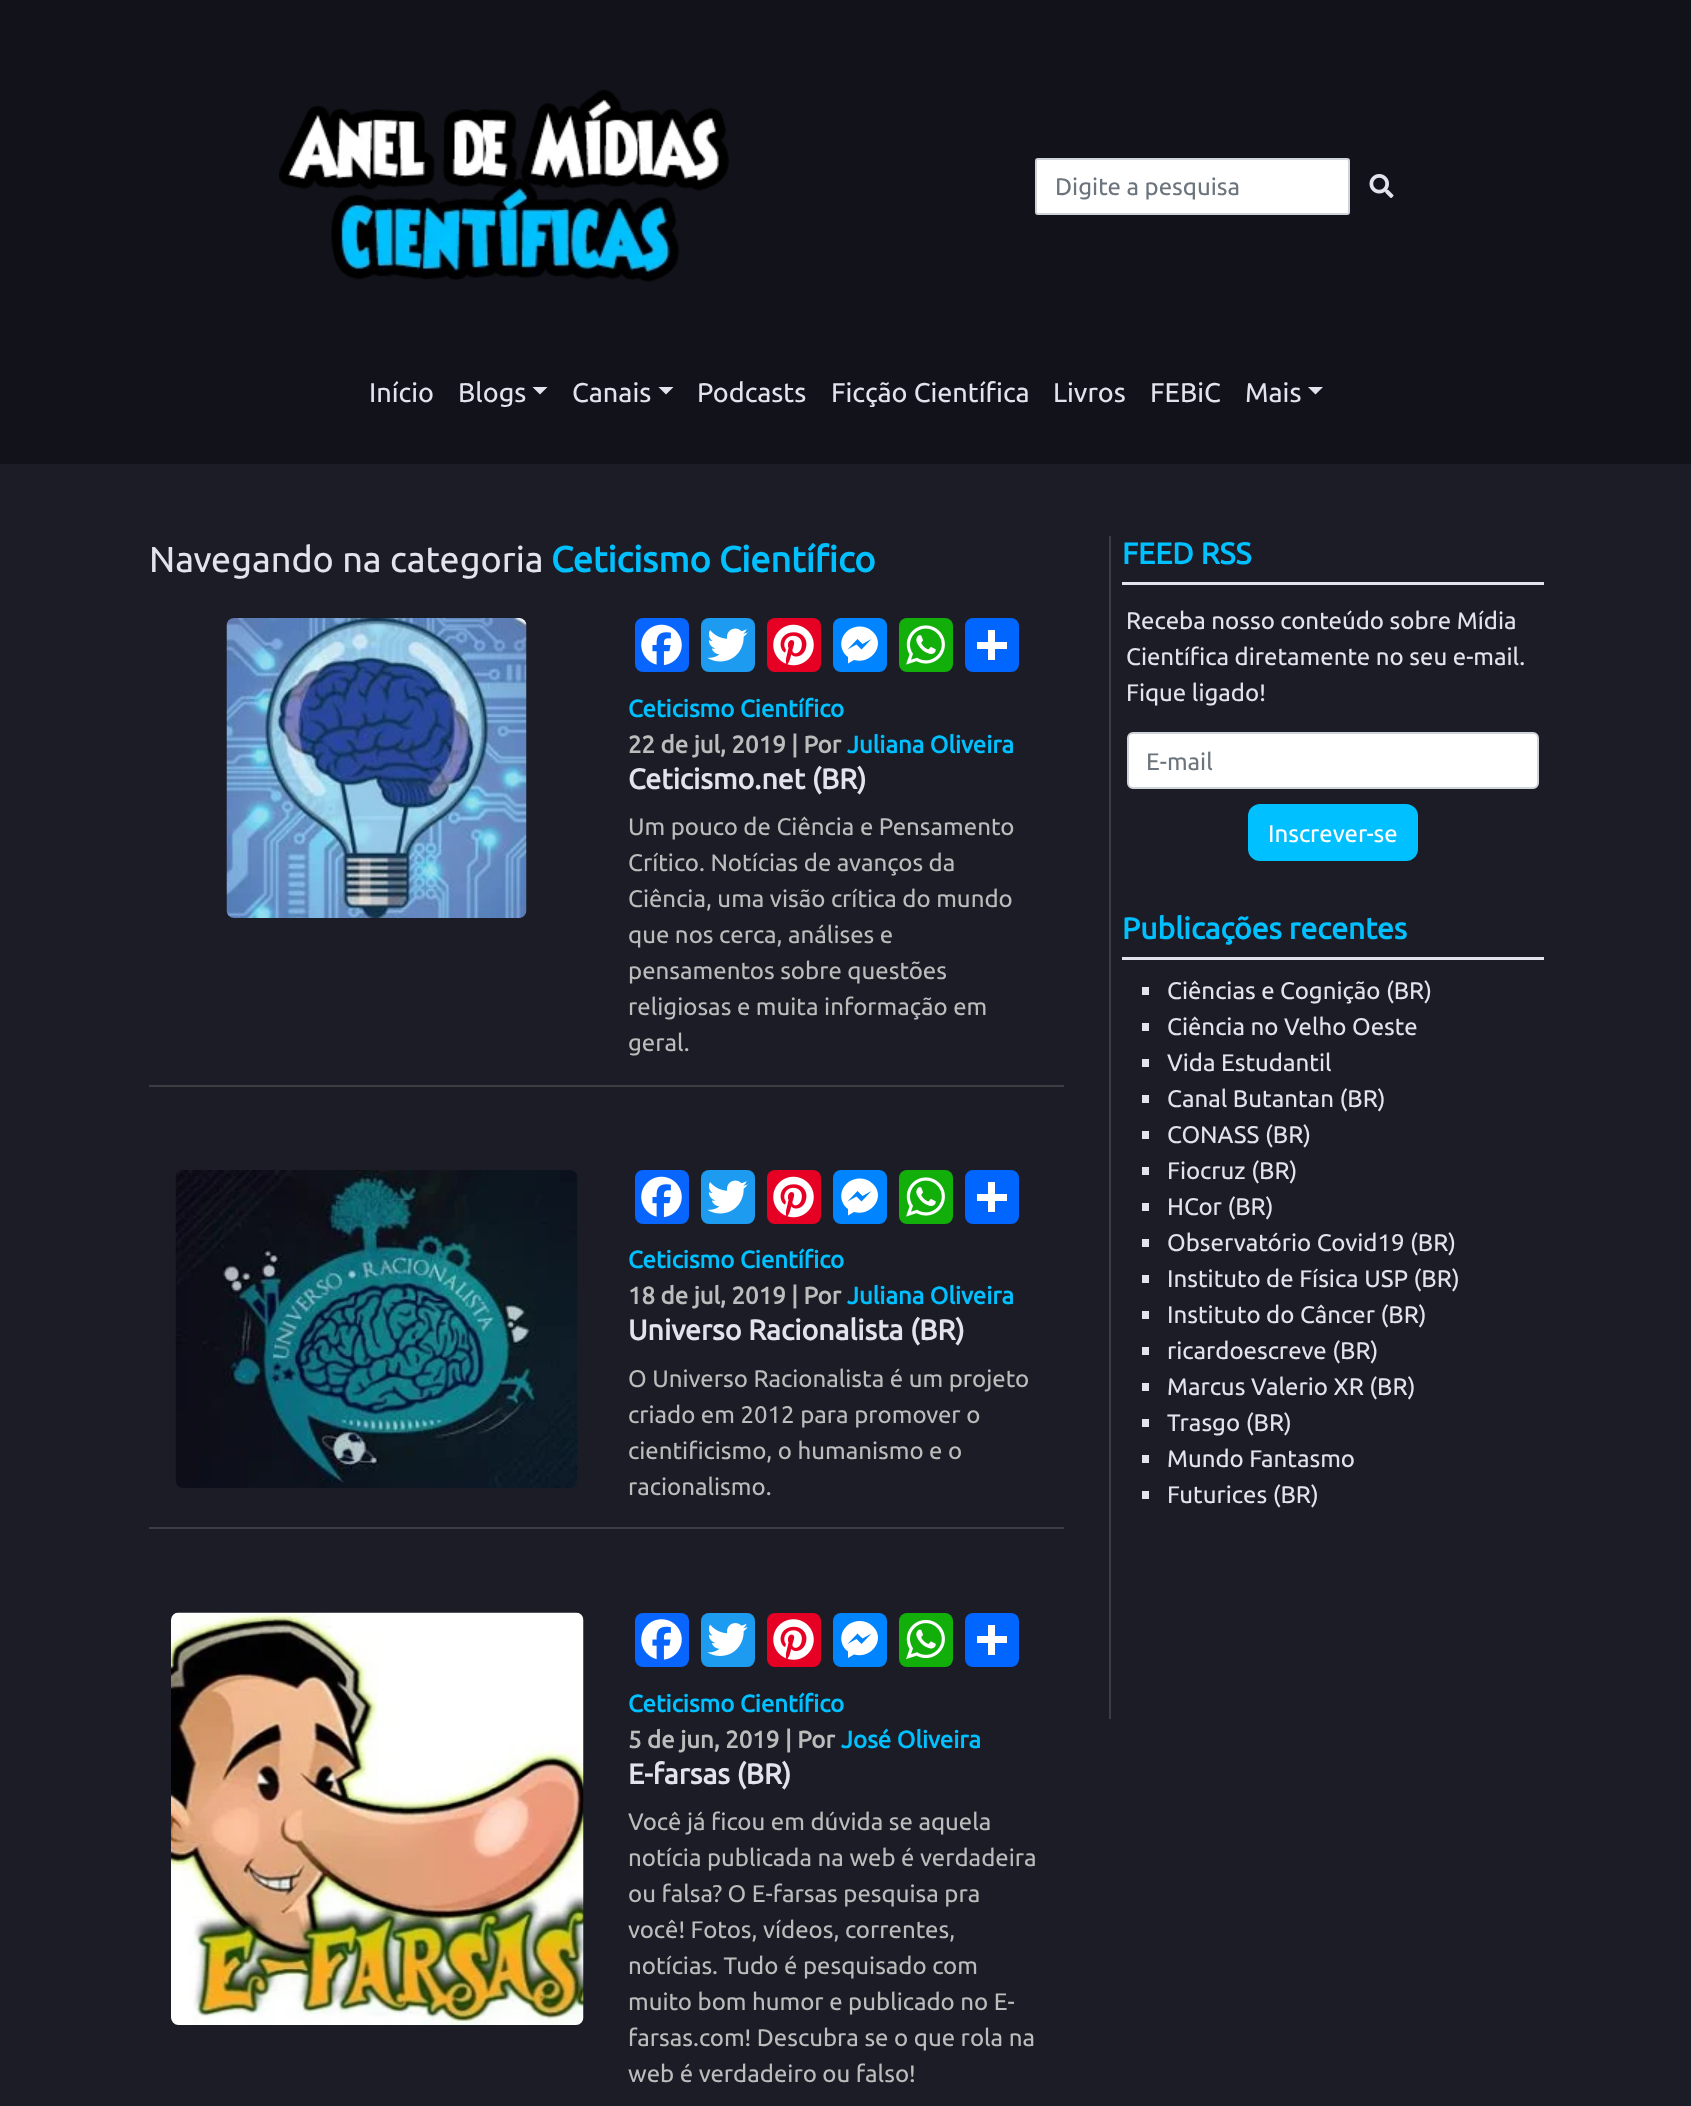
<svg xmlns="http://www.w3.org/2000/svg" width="1691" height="2106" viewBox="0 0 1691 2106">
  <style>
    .t1 { font: 24px Ubuntu; fill: #6c757d; }
    .t2 { font: 27px Ubuntu; fill: #e3e3ed; }
    .t3 { font: 36px Ubuntu; fill: #e3e3ed; }
    .t4 { font: bold 36px Ubuntu; fill: #00c0ff; }
    .t5 { font: bold 24px Ubuntu; fill: #00c0ff; }
    .t6 { font: bold 24px Ubuntu; fill: #bcbcbc; }
    .t7 { font: bold 28.5px Ubuntu; fill: #e3e3ed; }
    .t8 { font: 24px Ubuntu; fill: #bcbcbc; }
    .t9 { font: bold 30px Ubuntu; fill: #00c0ff; }
    .t10 { font: 24px Ubuntu; fill: #e3e3ed; }
    .t11 { font: 24px Ubuntu; fill: #fff; }
  </style>
  <rect width="100%" height="100%" fill="#1c1c27"/>
  <rect x="0" y="0" width="1691" height="464" fill="#12121a"/>
  <image x="279" y="89" width="450" height="193" href="images/1.png"/>
  <rect x="1036" y="159" width="313" height="55" rx="2" fill="#fff" stroke="#ced4da" stroke-width="2"/>
  <text x="1055" y="195" class="t1">Digite a pesquisa</text>
  <image x="1369" y="174" width="25" height="24" href="images/2.png"/>
  <text x="369" y="402" class="t2">Início</text>
  <text x="458" y="402" class="t2">Blogs</text>
  <path d="M532.5 387H547.5L540 394.5Z" fill="#e3e3ed"/>
  <text x="572" y="402" class="t2">Canais</text>
  <path d="M658.5 387H673.5L666 394.5Z" fill="#e3e3ed"/>
  <text x="697" y="402" class="t2">Podcasts</text>
  <text x="831" y="402" class="t2">Ficção Científica</text>
  <text x="1053" y="402" class="t2">Livros</text>
  <text x="1150" y="402" class="t2">FEBiC</text>
  <text x="1245" y="402" class="t2">Mais</text>
  <path d="M1308 387H1323L1315.5 394.5Z" fill="#e3e3ed"/>
  <text x="149" y="572" class="t3">Navegando na categoria</text>
  <text x="551" y="572" class="t4">Ceticismo Científico</text>
  <image x="226" y="618" width="301" height="300" href="images/3.png"/>
  <rect x="635" y="618" width="54" height="54" rx="8" fill="#0866ff"/>
  <image x="641" y="624" width="41" height="42" href="images/4.png"/>
  <rect x="701" y="618" width="54" height="54" rx="8" fill="#1d9bf0"/>
  <image x="707" y="628" width="41" height="34" href="images/5.png"/>
  <rect x="767" y="618" width="54" height="54" rx="8" fill="#e60023"/>
  <image x="773" y="624" width="41" height="42" href="images/6.png"/>
  <rect x="833" y="618" width="54" height="54" rx="8" fill="#0084ff"/>
  <path d="M859.5 626.5C843 626.5 834.5 646.5 848 657V663.5L854 660C871.5 665 886.5 644.5 872.5 631.5C869 628 864.5 626.5 859.5 626.5M861.5 649.5L856.5 644.5L847.5 649.5L857.5 639L862.5 644L871.5 639Z" fill="#fff"/>
  <rect x="899" y="618" width="54" height="54" rx="8" fill="#12af0a"/>
  <image x="906" y="625" width="39" height="40" href="images/7.png"/>
  <rect x="965" y="618" width="54" height="54" rx="8" fill="#0166ff"/>
  <rect x="988" y="630" width="7" height="30" fill="#fff"/>
  <rect x="977" y="642" width="30" height="7" fill="#fff"/>
  <text x="628" y="717" class="t5">Ceticismo Científico</text>
  <text x="628" y="753" class="t6">22 de jul, 2019 | Por</text>
  <text x="847" y="753" class="t5">Juliana Oliveira</text>
  <text x="628" y="789" class="t7">Ceticismo.net (BR)</text>
  <text x="628" y="835" class="t8">Um pouco de Ciência e Pensamento</text>
  <text x="628" y="871" class="t8">Crítico. Notícias de avanços da</text>
  <text x="628" y="907" class="t8">Ciência, uma visão crítica do mundo</text>
  <text x="628" y="943" class="t8">que nos cerca, análises e</text>
  <text x="628" y="979" class="t8">pensamentos sobre questões</text>
  <text x="628" y="1015" class="t8">religiosas e muita informação em</text>
  <text x="628" y="1051" class="t8">geral.</text>
  <rect x="149" y="1085" width="915" height="2" fill="#3c3c42"/>
  <image x="175" y="1170" width="403" height="318" href="images/8.png"/>
  <rect x="635" y="1170" width="54" height="54" rx="8" fill="#0866ff"/>
  <image x="641" y="1176" width="41" height="42" href="images/4.png"/>
  <rect x="701" y="1170" width="54" height="54" rx="8" fill="#1d9bf0"/>
  <image x="707" y="1180" width="41" height="34" href="images/5.png"/>
  <rect x="767" y="1170" width="54" height="54" rx="8" fill="#e60023"/>
  <image x="773" y="1176" width="41" height="42" href="images/6.png"/>
  <rect x="833" y="1170" width="54" height="54" rx="8" fill="#0084ff"/>
  <path d="M859.5 1178.5C843 1178.5 834.5 1198.5 848 1209V1215.5L854 1212C871.5 1217 886.5 1196.5 872.5 1183.5C869 1180 864.5 1178.5 859.5 1178.5M861.5 1201.5L856.5 1196.5L847.5 1201.5L857.5 1191L862.5 1196L871.5 1191Z" fill="#fff"/>
  <rect x="899" y="1170" width="54" height="54" rx="8" fill="#12af0a"/>
  <image x="906" y="1177" width="39" height="40" href="images/7.png"/>
  <rect x="965" y="1170" width="54" height="54" rx="8" fill="#0166ff"/>
  <rect x="988" y="1182" width="7" height="30" fill="#fff"/>
  <rect x="977" y="1194" width="30" height="7" fill="#fff"/>
  <text x="628" y="1268" class="t5">Ceticismo Científico</text>
  <text x="628" y="1304" class="t6">18 de jul, 2019 | Por</text>
  <text x="847" y="1304" class="t5">Juliana Oliveira</text>
  <text x="628" y="1340" class="t7">Universo Racionalista (BR)</text>
  <text x="628" y="1387" class="t8">O Universo Racionalista é um projeto</text>
  <text x="628" y="1423" class="t8">criado em 2012 para promover o</text>
  <text x="628" y="1459" class="t8">cientificismo, o humanismo e o</text>
  <text x="628" y="1495" class="t8">racionalismo.</text>
  <rect x="149" y="1527" width="915" height="2" fill="#3c3c42"/>
  <image x="171" y="1612" width="413" height="413" href="images/9.png"/>
  <rect x="635" y="1613" width="54" height="54" rx="8" fill="#0866ff"/>
  <image x="641" y="1619" width="41" height="41" href="images/10.png"/>
  <rect x="701" y="1613" width="54" height="54" rx="8" fill="#1d9bf0"/>
  <image x="707" y="1623" width="41" height="33" href="images/11.png"/>
  <rect x="767" y="1613" width="54" height="54" rx="8" fill="#e60023"/>
  <image x="773" y="1619" width="41" height="41" href="images/12.png"/>
  <rect x="833" y="1613" width="54" height="54" rx="8" fill="#0084ff"/>
  <path d="M859.5 1621C843 1621 834.5 1641 848 1651.5V1658L854 1654.5C871.5 1659.5 886.5 1639 872.5 1626C869 1622.5 864.5 1621 859.5 1621M861.5 1644L856.5 1639L847.5 1644L857.5 1633.5L862.5 1638.5L871.5 1633.5Z" fill="#fff"/>
  <rect x="899" y="1613" width="54" height="54" rx="8" fill="#12af0a"/>
  <image x="906" y="1619" width="39" height="40" href="images/13.png"/>
  <rect x="965" y="1613" width="54" height="54" rx="8" fill="#0166ff"/>
  <rect x="988" y="1625" width="7" height="30" fill="#fff"/>
  <rect x="977" y="1636" width="30" height="7" fill="#fff"/>
  <text x="628" y="1712" class="t5">Ceticismo Científico</text>
  <text x="628" y="1748" class="t6">5 de jun, 2019 | Por</text>
  <text x="841" y="1748" class="t5">José Oliveira</text>
  <text x="628" y="1784" class="t7">E-farsas (BR)</text>
  <text x="628" y="1830" class="t8">Você já ficou em dúvida se aquela</text>
  <text x="628" y="1866" class="t8">notícia publicada na web é verdadeira</text>
  <text x="628" y="1902" class="t8">ou falsa? O E-farsas pesquisa pra</text>
  <text x="628" y="1938" class="t8">você! Fotos, vídeos, correntes,</text>
  <text x="628" y="1974" class="t8">notícias. Tudo é pesquisado com</text>
  <text x="628" y="2010" class="t8">muito bom humor e publicado no E-</text>
  <text x="628" y="2046" class="t8">farsas.com! Descubra se o que rola na</text>
  <text x="628" y="2082" class="t8">web é verdadeiro ou falso!</text>
  <rect x="1109" y="536" width="2" height="1183" fill="#3c3c42"/>
  <rect x="1122" y="582" width="422" height="3" fill="#e3e3ed"/>
  <text x="1122" y="564" class="t9">FEED RSS</text>
  <text x="1126" y="629" class="t10">Receba nosso conteúdo sobre Mídia</text>
  <text x="1126" y="665" class="t10">Científica diretamente no seu e-mail.</text>
  <text x="1126" y="701" class="t10">Fique ligado!</text>
  <rect x="1128" y="733" width="410" height="55" rx="5" fill="#fff" stroke="#ced4da" stroke-width="2"/>
  <text x="1146" y="770" class="t1">E-mail</text>
  <rect x="1248" y="804" width="170" height="57" rx="12" fill="#00c0ff"/>
  <text x="1268" y="842" class="t11">Inscrever-se</text>
  <rect x="1122" y="957" width="422" height="3" fill="#e3e3ed"/>
  <text x="1122" y="939" class="t9">Publicações recentes</text>
  <rect x="1142" y="987" width="7" height="8" fill="#e3e3ed"/>
  <text x="1167" y="999" class="t10">Ciências e Cognição (BR)</text>
  <rect x="1142" y="1023" width="7" height="8" fill="#e3e3ed"/>
  <text x="1167" y="1035" class="t10">Ciência no Velho Oeste</text>
  <rect x="1142" y="1059" width="7" height="8" fill="#e3e3ed"/>
  <text x="1167" y="1071" class="t10">Vida Estudantil</text>
  <rect x="1142" y="1095" width="7" height="8" fill="#e3e3ed"/>
  <text x="1167" y="1107" class="t10">Canal Butantan (BR)</text>
  <rect x="1142" y="1131" width="7" height="8" fill="#e3e3ed"/>
  <text x="1167" y="1143" class="t10">CONASS (BR)</text>
  <rect x="1142" y="1167" width="7" height="8" fill="#e3e3ed"/>
  <text x="1167" y="1179" class="t10">Fiocruz (BR)</text>
  <rect x="1142" y="1203" width="7" height="8" fill="#e3e3ed"/>
  <text x="1167" y="1215" class="t10">HCor (BR)</text>
  <rect x="1142" y="1239" width="7" height="8" fill="#e3e3ed"/>
  <text x="1167" y="1251" class="t10">Observatório Covid19 (BR)</text>
  <rect x="1142" y="1275" width="7" height="8" fill="#e3e3ed"/>
  <text x="1167" y="1287" class="t10">Instituto de Física USP (BR)</text>
  <rect x="1142" y="1311" width="7" height="8" fill="#e3e3ed"/>
  <text x="1167" y="1323" class="t10">Instituto do Câncer (BR)</text>
  <rect x="1142" y="1347" width="7" height="8" fill="#e3e3ed"/>
  <text x="1167" y="1359" class="t10">ricardoescreve (BR)</text>
  <rect x="1142" y="1383" width="7" height="8" fill="#e3e3ed"/>
  <text x="1167" y="1395" class="t10">Marcus Valerio XR (BR)</text>
  <rect x="1142" y="1419" width="7" height="8" fill="#e3e3ed"/>
  <text x="1167" y="1431" class="t10">Trasgo (BR)</text>
  <rect x="1142" y="1455" width="7" height="8" fill="#e3e3ed"/>
  <text x="1167" y="1467" class="t10">Mundo Fantasmo</text>
  <rect x="1142" y="1491" width="7" height="8" fill="#e3e3ed"/>
  <text x="1167" y="1503" class="t10">Futurices (BR)</text>
</svg>
